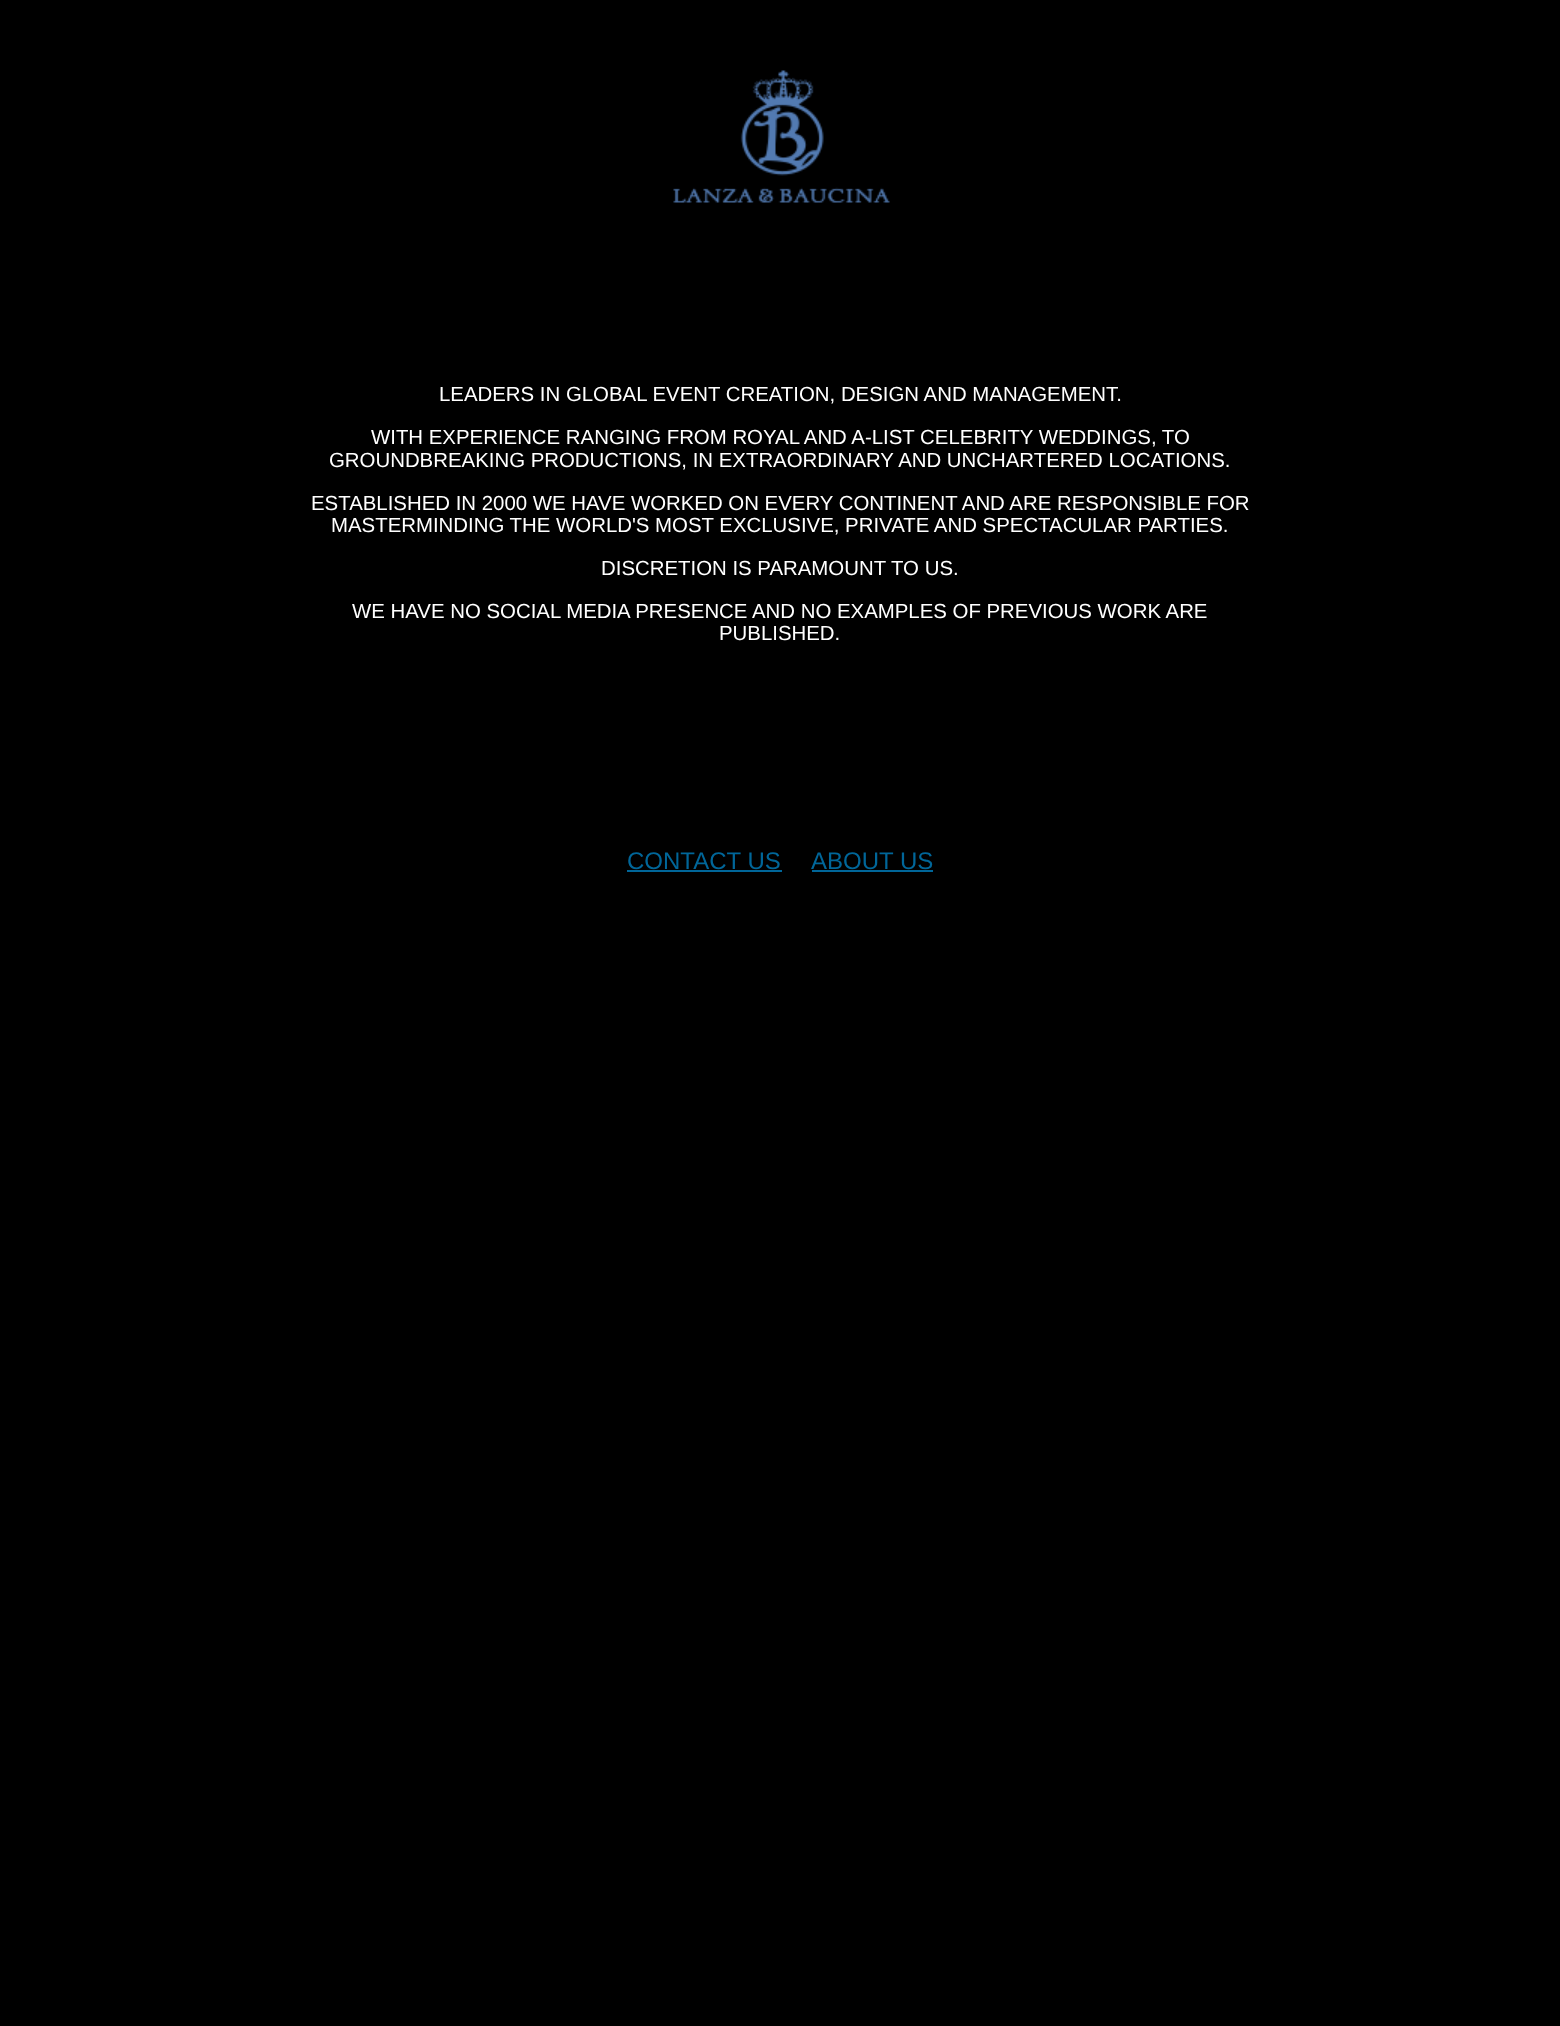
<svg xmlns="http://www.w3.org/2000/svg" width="1560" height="2026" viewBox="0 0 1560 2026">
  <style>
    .t1 { font: 20.4px Liberation Sans; fill: #fff; }
    .t2 { font: 24px Liberation Sans; fill: #069; }
  </style>
  <rect width="100%" height="100%" fill="#000"/>
  <image x="673" y="70" width="217" height="133" href="images/1.png"/>
  <text x="439" y="401" class="t1">LEADERS IN GLOBAL EVENT CREATION, DESIGN AND MANAGEMENT.</text>
  <text x="371" y="444" class="t1">WITH EXPERIENCE RANGING FROM ROYAL AND A-LIST CELEBRITY WEDDINGS, TO</text>
  <text x="329" y="467" class="t1">GROUNDBREAKING PRODUCTIONS, IN EXTRAORDINARY AND UNCHARTERED LOCATIONS.</text>
  <text x="311" y="510" class="t1">ESTABLISHED IN 2000 WE HAVE WORKED ON EVERY CONTINENT AND ARE RESPONSIBLE FOR</text>
  <text x="331" y="532" class="t1">MASTERMINDING THE WORLD'S MOST EXCLUSIVE, PRIVATE AND SPECTACULAR PARTIES.</text>
  <text x="601" y="575" class="t1">DISCRETION IS PARAMOUNT TO US.</text>
  <text x="352" y="618" class="t1">WE HAVE NO SOCIAL MEDIA PRESENCE AND NO EXAMPLES OF PREVIOUS WORK ARE</text>
  <text x="719" y="640" class="t1">PUBLISHED.</text>
  <text x="627" y="869" class="t2">CONTACT US</text>
  <rect x="627" y="870" width="155" height="2" fill="#069"/>
  <text x="811" y="869" class="t2">ABOUT US</text>
  <rect x="812" y="870" width="121" height="2" fill="#069"/>
</svg>
